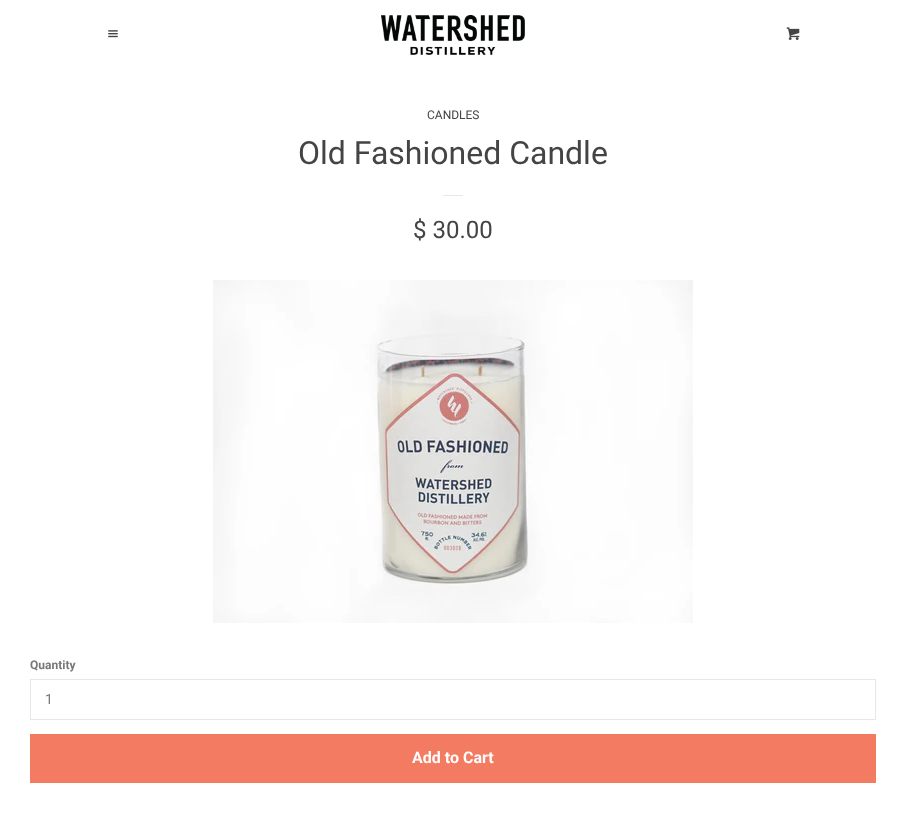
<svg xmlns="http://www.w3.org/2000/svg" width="906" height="823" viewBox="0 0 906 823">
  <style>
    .t1 { font: 12px Roboto; fill: #444; }
    .t2 { font: 32px Roboto; fill: #444; }
    .t3 { font: 24px Roboto; fill: #444; }
    .t4 { font: bold 12px Roboto; fill: #777; }
    .t5 { font: 14px Roboto; fill: #777; }
    .t6 { font: bold 16px Roboto; fill: #fff; }
  </style>
  <rect width="100%" height="100%" fill="#fff"/>
  <image x="108" y="30" width="10" height="8" href="images/1.png"/>
  <image x="381" y="15" width="144" height="40" href="images/2.png"/>
  <image x="786" y="27" width="14" height="13" href="images/3.png"/>
  <text x="427" y="119" class="t1">CANDLES</text>
  <text x="298" y="164" class="t2">Old Fashioned Candle</text>
  <rect x="443" y="195" width="20" height="1" fill="#e7e7e7"/>
  <text x="413" y="238" class="t3">$ 30.00</text>
  <image x="213" y="280" width="480" height="343" href="images/4.png"/>
  <text x="30" y="669" class="t4">Quantity</text>
  <rect x="30.5" y="679.5" width="845" height="40" fill="none" stroke="#e7e7e7"/>
  <text x="45" y="704" class="t5">1</text>
  <rect x="30" y="734" width="846" height="49" fill="#f37b61"/>
  <text x="412" y="763" class="t6">Add to Cart</text>
</svg>
